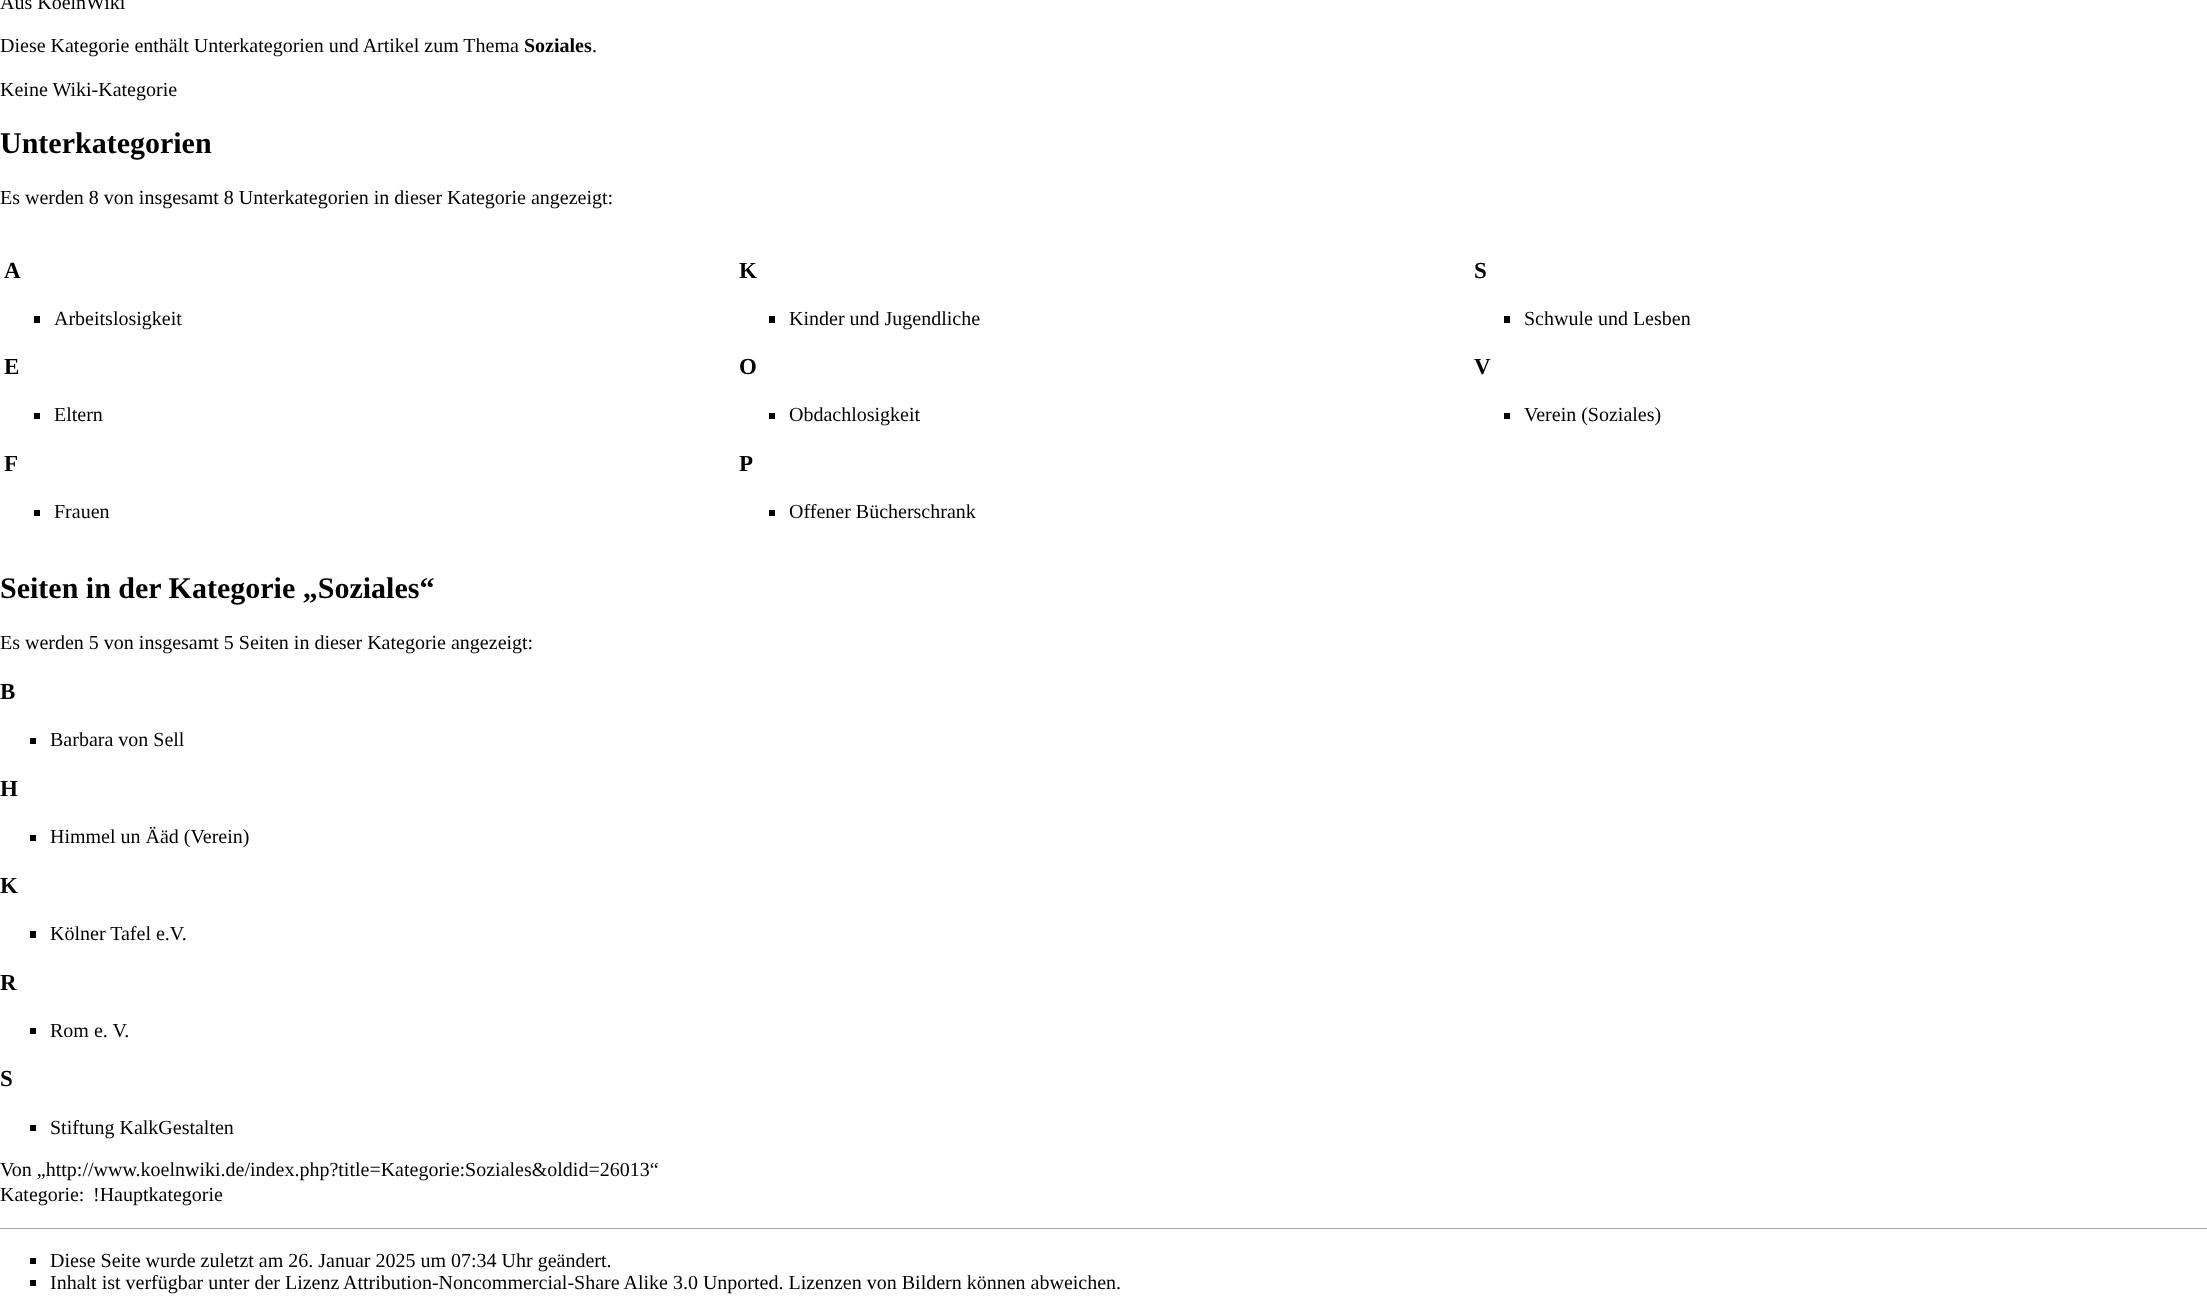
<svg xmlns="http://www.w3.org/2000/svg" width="2207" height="1313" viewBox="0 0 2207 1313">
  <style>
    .t1 { font: 20px Liberation Serif; fill: #000; }
    .t2 { font: bold 20px Liberation Serif; fill: #000; }
    .t3 { font: bold 30px Liberation Serif; fill: #000; }
    .t4 { font: bold 23px Liberation Serif; fill: #000; }
  </style>
  <rect width="100%" height="100%" fill="#fff"/>
  <text x="0" y="9" class="t1">Aus KoelnWiki</text>
  <text x="0" y="52" class="t1">Diese Kategorie enthält Unterkategorien und Artikel zum Thema</text>
  <text x="524" y="52" class="t2">Soziales</text>
  <text x="592" y="52" class="t1">.</text>
  <text x="0" y="96" class="t1">Keine Wiki-Kategorie</text>
  <text x="0" y="153" class="t3">Unterkategorien</text>
  <text x="0" y="204" class="t1">Es werden 8 von insgesamt 8 Unterkategorien in dieser Kategorie angezeigt:</text>
  <text x="4" y="278" class="t4">A</text>
  <rect x="34" y="316" width="6" height="7" fill="#000"/>
  <text x="54" y="325" class="t1">Arbeitslosigkeit</text>
  <text x="4" y="374" class="t4">E</text>
  <rect x="34" y="413" width="6" height="6" fill="#000"/>
  <text x="54" y="421" class="t1">Eltern</text>
  <text x="4" y="471" class="t4">F</text>
  <rect x="34" y="510" width="6" height="6" fill="#000"/>
  <text x="54" y="518" class="t1">Frauen</text>
  <text x="739" y="278" class="t4">K</text>
  <rect x="769" y="316" width="6" height="7" fill="#000"/>
  <text x="789" y="325" class="t1">Kinder und Jugendliche</text>
  <text x="739" y="374" class="t4">O</text>
  <rect x="769" y="413" width="6" height="6" fill="#000"/>
  <text x="789" y="421" class="t1">Obdachlosigkeit</text>
  <text x="739" y="471" class="t4">P</text>
  <rect x="769" y="510" width="6" height="6" fill="#000"/>
  <text x="789" y="518" class="t1">Offener Bücherschrank</text>
  <text x="1474" y="278" class="t4">S</text>
  <rect x="1504" y="316" width="6" height="7" fill="#000"/>
  <text x="1524" y="325" class="t1">Schwule und Lesben</text>
  <text x="1474" y="374" class="t4">V</text>
  <rect x="1504" y="413" width="6" height="6" fill="#000"/>
  <text x="1524" y="421" class="t1">Verein (Soziales)</text>
  <text x="0" y="598" class="t3">Seiten in der Kategorie „Soziales“</text>
  <text x="0" y="649" class="t1">Es werden 5 von insgesamt 5 Seiten in dieser Kategorie angezeigt:</text>
  <text x="0" y="699" class="t4">B</text>
  <rect x="30" y="738" width="6" height="6" fill="#000"/>
  <text x="50" y="746" class="t1">Barbara von Sell</text>
  <text x="0" y="796" class="t4">H</text>
  <rect x="30" y="835" width="6" height="6" fill="#000"/>
  <text x="50" y="843" class="t1">Himmel un Ääd (Verein)</text>
  <text x="0" y="893" class="t4">K</text>
  <rect x="30" y="931" width="6" height="7" fill="#000"/>
  <text x="50" y="940" class="t1">Kölner Tafel e.V.</text>
  <text x="0" y="990" class="t4">R</text>
  <rect x="30" y="1028" width="6" height="6" fill="#000"/>
  <text x="50" y="1037" class="t1">Rom e. V.</text>
  <text x="0" y="1086" class="t4">S</text>
  <rect x="30" y="1125" width="6" height="6" fill="#000"/>
  <text x="50" y="1134" class="t1">Stiftung KalkGestalten</text>
  <text x="0" y="1176" class="t1">Von „http://www.koelnwiki.de/index.php?title=Kategorie:Soziales&amp;oldid=26013“</text>
  <text x="0" y="1201" class="t1">Kategorie:</text>
  <text x="93" y="1201" class="t1">!Hauptkategorie</text>
  <rect x="0" y="1228" width="2207" height="1" fill="#aaa"/>
  <rect x="30" y="1258" width="6" height="6" fill="#000"/>
  <text x="50" y="1267" class="t1">Diese Seite wurde zuletzt am 26. Januar 2025 um 07:34 Uhr geändert.</text>
  <rect x="30" y="1280" width="6" height="6" fill="#000"/>
  <text x="50" y="1289" class="t1">Inhalt ist verfügbar unter der Lizenz</text>
  <text x="343" y="1289" class="t1">Attribution-Noncommercial-Share Alike 3.0 Unported. Lizenzen von Bildern können abweichen.</text>
</svg>
